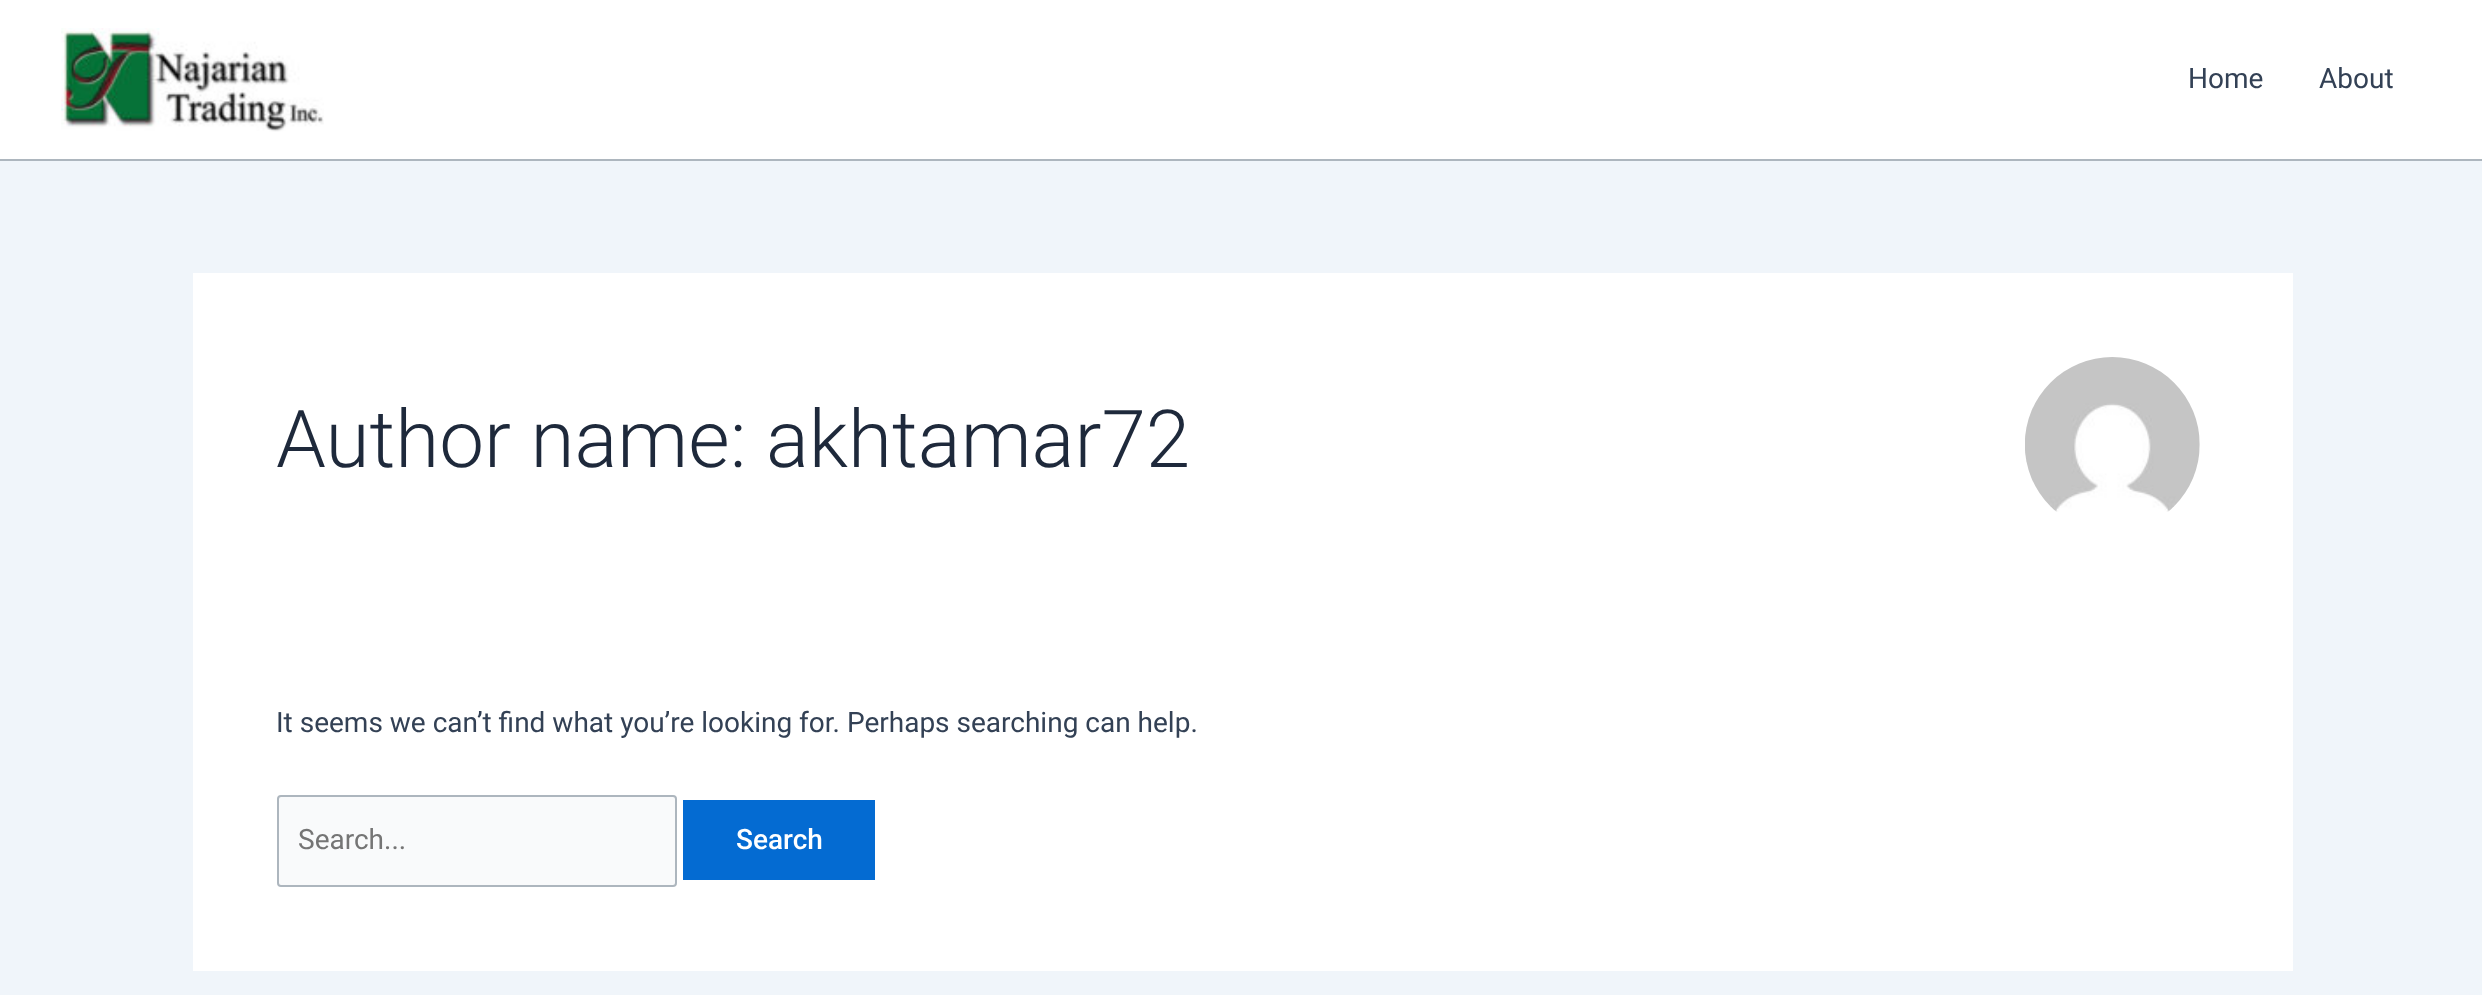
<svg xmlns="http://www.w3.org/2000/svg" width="2482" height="995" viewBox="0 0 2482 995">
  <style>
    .t1 { font: 28px Roboto; fill: #334155; }
    .t2 { font: 300 80px Roboto; fill: #1e293b; }
    .t3 { font: 28px Roboto; fill: #757575; }
    .t4 { font: 500 28px Roboto; fill: #fff; }
  </style>
  <rect width="100%" height="100%" fill="#f0f5fa"/>
  <rect x="0" y="0" width="2482" height="159" fill="#fff"/>
  <rect x="0" y="159" width="2482" height="2" fill="#adb6be"/>
  <image x="61" y="28" width="263" height="104" href="images/1.png"/>
  <text x="2188" y="88" class="t1">Home</text>
  <text x="2319" y="88" class="t1">About</text>
  <rect x="193" y="273" width="2100" height="698" fill="#fff"/>
  <text x="276" y="467" class="t2">Author name: akhtamar72</text>
  <image x="2025" y="357" width="175" height="155" href="images/2.png"/>
  <text x="276" y="732" class="t1">It seems we can’t find what you’re looking for. Perhaps searching can help.</text>
  <rect x="278" y="796" width="398" height="90" rx="3" fill="#f9fafb" stroke="#adb6be" stroke-width="2"/>
  <text x="298" y="849" class="t3">Search...</text>
  <rect x="683" y="800" width="192" height="80" fill="#046bd2"/>
  <text x="736" y="849" class="t4">Search</text>
</svg>
